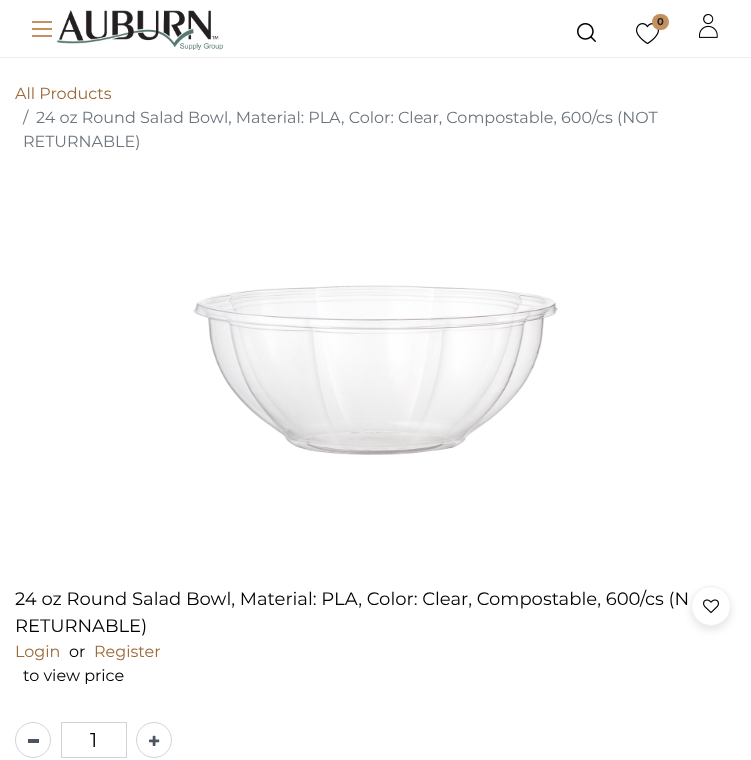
<svg xmlns="http://www.w3.org/2000/svg" width="751" height="760" viewBox="0 0 751 760">
  <style>
    .t1 { font: bold 10px Montserrat; fill: #212529; }
    .t2 { font: 16px Montserrat; fill: #9c6a39; }
    .t3 { font: 16px Montserrat; fill: #6c757d; }
    .t4 { font: 18px Montserrat; fill: #000; }
    .t5 { font: 16px Montserrat; fill: #000; }
    .t6 { font: 20px Montserrat; fill: #000; }
  </style>
  <rect width="100%" height="100%" fill="#fff"/>
  <rect x="32" y="21" width="20" height="2" fill="#c4905e"/>
  <rect x="32" y="28" width="20" height="2" fill="#c4905e"/>
  <rect x="32" y="35" width="20" height="2" fill="#c4905e"/>
  <image x="57" y="10" width="166" height="40" href="images/1.png"/>
  <image x="636" y="23" width="23" height="21" href="images/2.png"/>
  <rect x="652" y="14" width="17" height="16" rx="8" fill="#c4905e"/>
  <text x="657" y="25" class="t1">0</text>
  <image x="699" y="14" width="19" height="24" href="images/3.png"/>
  <image x="577" y="23" width="19" height="19" href="images/4.png"/>
  <rect x="0" y="57" width="751" height="1" fill="#ededed"/>
  <text x="15" y="99" class="t2">All Products</text>
  <text x="23" y="123" class="t3">/</text>
  <text x="36" y="123" class="t3">24 oz Round Salad Bowl, Material: PLA, Color: Clear, Compostable, 600/cs (NOT</text>
  <text x="23" y="147" class="t3">RETURNABLE)</text>
  <image x="193" y="285" width="365" height="170" href="images/5.png"/>
  <text x="15" y="605" class="t4">24 oz Round Salad Bowl, Material: PLA, Color: Clear, Compostable, 600/cs (N</text>
  <text x="15" y="632" class="t4">RETURNABLE)</text>
  <rect x="691" y="590" width="40" height="40" rx="20" fill="#0000001a" filter="blur(4px)"/>
  <circle cx="711" cy="606" r="19.5" fill="#fff" stroke="#f0f0f0"/>
  <image x="703" y="599" width="16" height="15" href="images/6.png"/>
  <text x="15" y="657" class="t2">Login</text>
  <text x="69" y="657" class="t5">or</text>
  <text x="94" y="657" class="t2">Register</text>
  <text x="23" y="681" class="t5">to view price</text>
  <circle cx="33" cy="740" r="17.5" fill="none" stroke="#ced4da"/>
  <rect x="28" y="739" width="11" height="4" fill="#4c5462"/>
  <rect x="61.5" y="722.5" width="65" height="35" fill="none" stroke="#ced4da"/>
  <text x="90" y="747" class="t6">1</text>
  <circle cx="154" cy="740" r="17.5" fill="none" stroke="#ced4da"/>
  <image x="149" y="735" width="11" height="11" href="images/7.png"/>
</svg>
